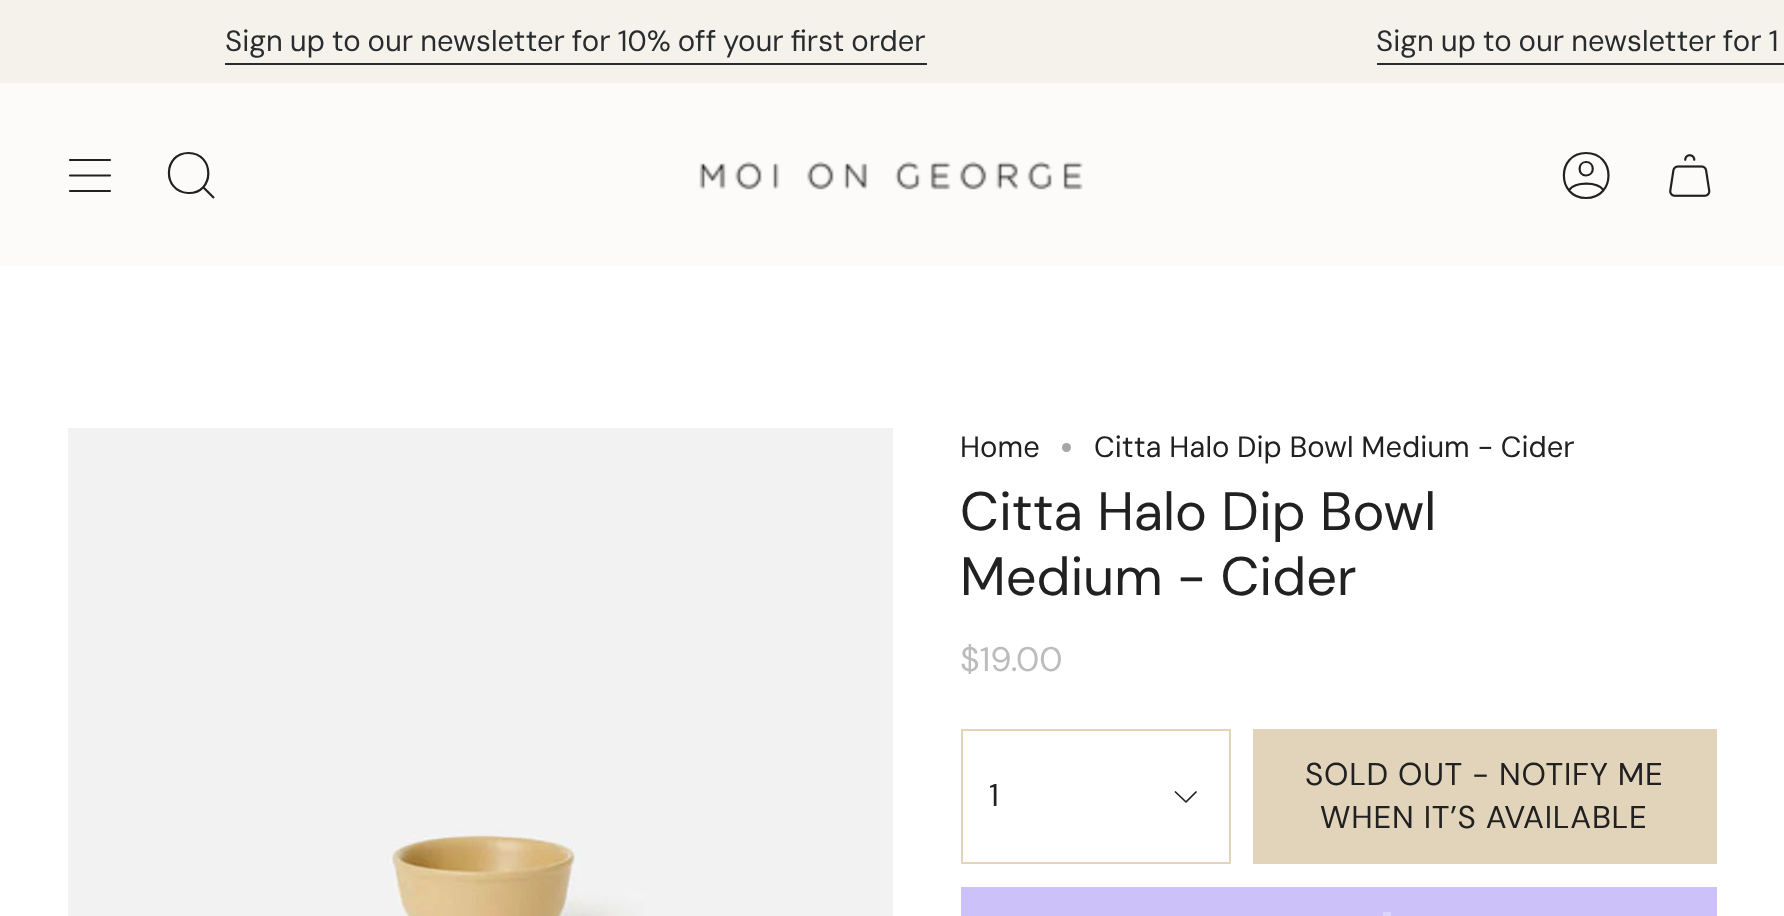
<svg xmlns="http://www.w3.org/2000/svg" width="1784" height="916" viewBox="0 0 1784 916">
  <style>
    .t1 { font: 29.25px DM Sans; fill: #282c2e; }
    .t2 { font: 29.25px DM Sans; fill: #212121; }
    .t3 { font: 54px 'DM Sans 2'; fill: #212121; }
    .t4 { font: 34px 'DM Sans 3'; fill: #bcbcbc; }
    .t5 { font: 31.5px 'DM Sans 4'; fill: #212121; }
    .t6 { font: 31.5px 'DM Sans 4'; letter-spacing: 0.75px; fill: #212121; }
  </style>
  <rect width="100%" height="100%" fill="#fcfbf9"/>
  <rect x="0" y="0" width="1784" height="83" fill="#f5f2eb"/>
  <text x="225" y="51" word-spacing="-1" class="t1">Sign up to our newsletter for 10% off your first order</text>
  <rect x="225" y="63" width="702" height="2" fill="#282c2e"/>
  <text x="1376" y="51" word-spacing="-1" class="t1">Sign up to our newsletter for 1</text>
  <rect x="1377" y="63" width="407" height="2" fill="#282c2e"/>
  <path d="M70 160H110M70 175.5H110M70 191H110" fill="none" stroke="#212121" stroke-width="2.2" stroke-linecap="round" stroke-linejoin="round"/>
  <path d="M188.5 153C215 153 215 194 188 193C162 191.5 163 153 188.5 153ZM203 187L214 198" fill="none" stroke="#212121" stroke-width="2.2"/>
  <image x="699" y="161" width="384" height="29" href="images/1.png"/>
  <path d="M1586 153C1556.5 153 1556.5 198 1586 198C1616 198 1616 153 1586 153ZM1569 190C1575.5 181.5 1597 181.5 1603.5 190M1586 175.5C1595 175.5 1595 162 1586 162C1577.5 162 1577.5 175.5 1586 175.5Z" fill="none" stroke="#212121" stroke-width="2.2" stroke-linecap="round" stroke-linejoin="round"/>
  <image x="1669" y="154" width="42" height="43" href="images/2.png"/>
  <rect x="0" y="266" width="1784" height="650" fill="#fff"/>
  <image x="68" y="428" width="825" height="488" href="images/3.png"/>
  <text x="960" y="457" class="t2">Home</text>
  <circle cx="1066.5" cy="447.5" r="4.5" fill="#a6a6a6"/>
  <text x="1094" y="457" word-spacing="-0.25" class="t2">Citta Halo Dip Bowl Medium - Cider</text>
  <text x="960" y="530" class="t3">Citta Halo Dip Bowl</text>
  <text x="960" y="595" class="t3">Medium - Cider</text>
  <text x="960" y="671" class="t4">$19.00</text>
  <rect x="962" y="730" width="268" height="133" fill="none" stroke="#e2d4ba" stroke-width="2"/>
  <text x="989" y="806" class="t5">1</text>
  <path d="M1175.5 792L1186 802L1196 792" fill="none" stroke="#212121" stroke-width="1.7" stroke-linecap="round" stroke-linejoin="round"/>
  <rect x="1253" y="729" width="464" height="135" fill="#e2d4ba"/>
  <text x="1305" y="785" class="t6">SOLD OUT - NOTIFY ME</text>
  <text x="1320" y="828" class="t6">WHEN IT’S AVAILABLE</text>
  <rect x="961" y="887" width="756" height="29" fill="#ccc2f9"/>
  <rect x="1383" y="912" width="8" height="4" fill="#dbd4fb"/>
</svg>
